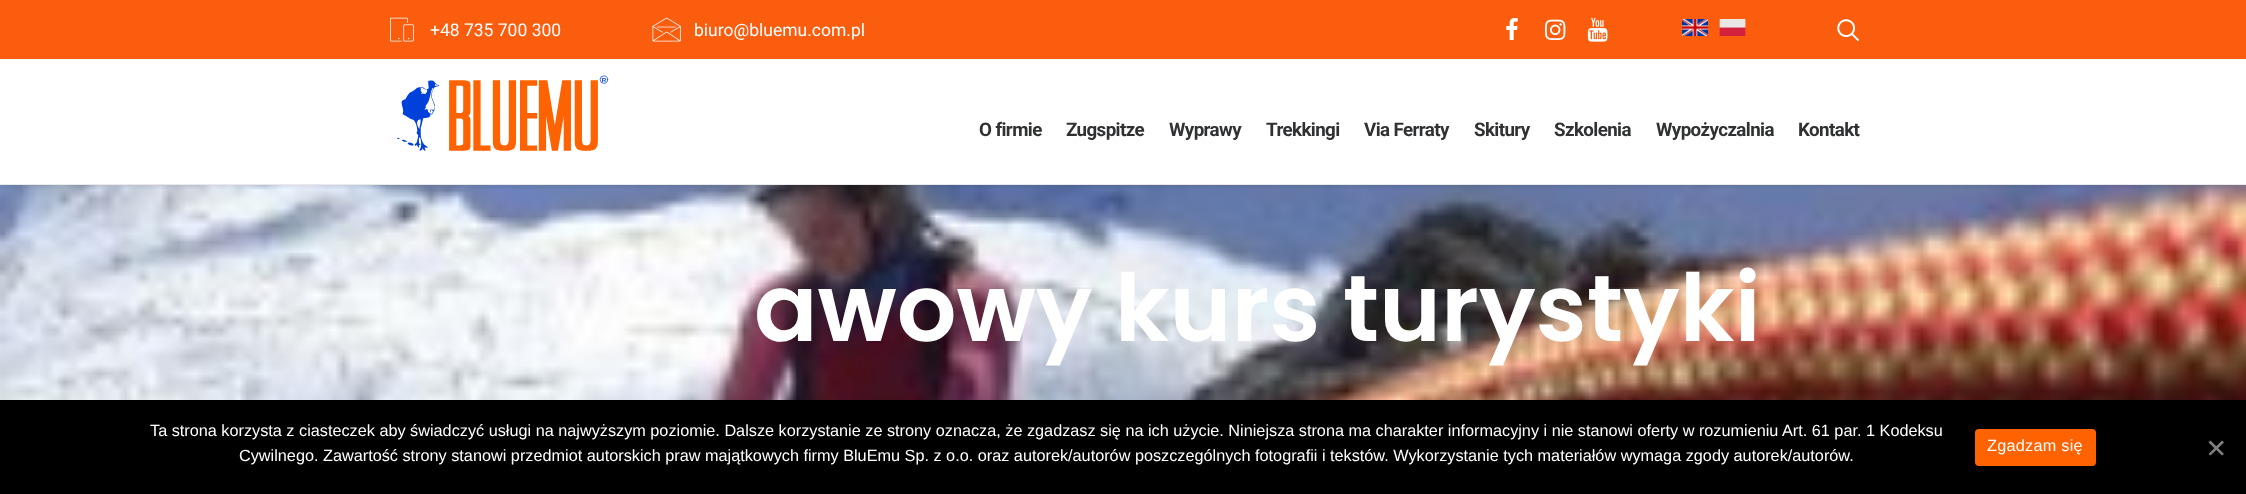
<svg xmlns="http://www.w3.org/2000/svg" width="2246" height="494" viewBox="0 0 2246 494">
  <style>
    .t1 { font: 17.5px Roboto; fill: #fff; }
    .t2 { font: bold 18.75px Roboto; letter-spacing: -0.6px; fill: #303133; }
    .t3 { font: 600 93.75px Poppins; fill: #fff; }
    .t4 { font: 16.25px Liberation Sans; fill: #fff; }
    .t5 { font: 16.25px Liberation Sans; letter-spacing: 0.25px; fill: #fff; }
  </style>
  <defs>
    <clipPath id="clip1"><rect x="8" y="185" width="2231" height="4"/></clipPath>
  </defs>
  <rect width="100%" height="100%" fill="#fff"/>
  <rect x="0" y="0" width="2246" height="59" fill="#fb5d0e"/>
  <image x="390" y="17" width="24" height="25" href="images/1.png"/>
  <text x="430" y="36" class="t1">+48 735 700 300</text>
  <image x="652" y="17" width="29" height="25" href="images/2.png"/>
  <text x="694" y="36" class="t1">biuro@bluemu.com.pl</text>
  <image x="1506" y="18" width="12" height="22" href="images/3.png"/>
  <image x="1545" y="19" width="21" height="21" href="images/4.png"/>
  <image x="1587" y="17" width="21" height="25" href="images/5.png"/>
  <image x="1682" y="19" width="26" height="18" href="images/6.png"/>
  <image x="1719" y="19" width="27" height="17" href="images/7.png"/>
  <image x="1837" y="19" width="22" height="22" href="images/8.png"/>
  <image x="0" y="185" width="2246" height="215" href="images/10.png"/>
  <g clip-path="url(#clip1)">
    <rect x="11" y="76" width="2225" height="102" fill="#00000099" filter="blur(6px)"/>
  </g>
  <rect x="0" y="184" width="2246" height="1" fill="#eaeaea"/>
  <image x="397" y="75" width="212" height="76" href="images/9.png"/>
  <text x="979" y="136" class="t2">O firmie</text>
  <text x="1066" y="136" class="t2">Zugspitze</text>
  <text x="1169" y="136" class="t2">Wyprawy</text>
  <text x="1266" y="136" class="t2">Trekkingi</text>
  <text x="1364" y="136" class="t2">Via Ferraty</text>
  <text x="1474" y="136" class="t2">Skitury</text>
  <text x="1554" y="136" class="t2">Szkolenia</text>
  <text x="1656" y="136" class="t2">Wypożyczalnia</text>
  <text x="1798" y="136" class="t2">Kontakt</text>
  <text x="754" y="341" class="t3">awowy kurs turystyki</text>
  <rect x="0" y="400" width="2246" height="94" fill="#000"/>
  <text x="150" y="436" class="t4">Ta strona korzysta z ciasteczek aby świadczyć usługi na najwyższym poziomie. Dalsze korzystanie ze strony oznacza, że zgadzasz się na ich użycie. Niniejsza strona ma charakter informacyjny i nie stanowi oferty w rozumieniu Art. 61 par. 1 Kodeksu</text>
  <text x="239" y="461" class="t4">Cywilnego. Zawartość strony stanowi przedmiot autorskich praw majątkowych firmy BluEmu Sp. z o.o. oraz autorek/autorów poszczególnych fotografii i tekstów. Wykorzystanie tych materiałów wymaga zgody autorek/autorów.</text>
  <rect x="1975" y="429" width="121" height="37" rx="4" fill="#ff6200"/>
  <text x="1987" y="451" class="t5">Zgadzam się</text>
  <path d="M2222 440.5L2224 442.5L2210.5 455.5L2208.5 454Z" fill="#808080"/>
  <path d="M2208.5 442.5L2210.5 440.5L2224 454L2222 455.5Z" fill="#808080"/>
</svg>
